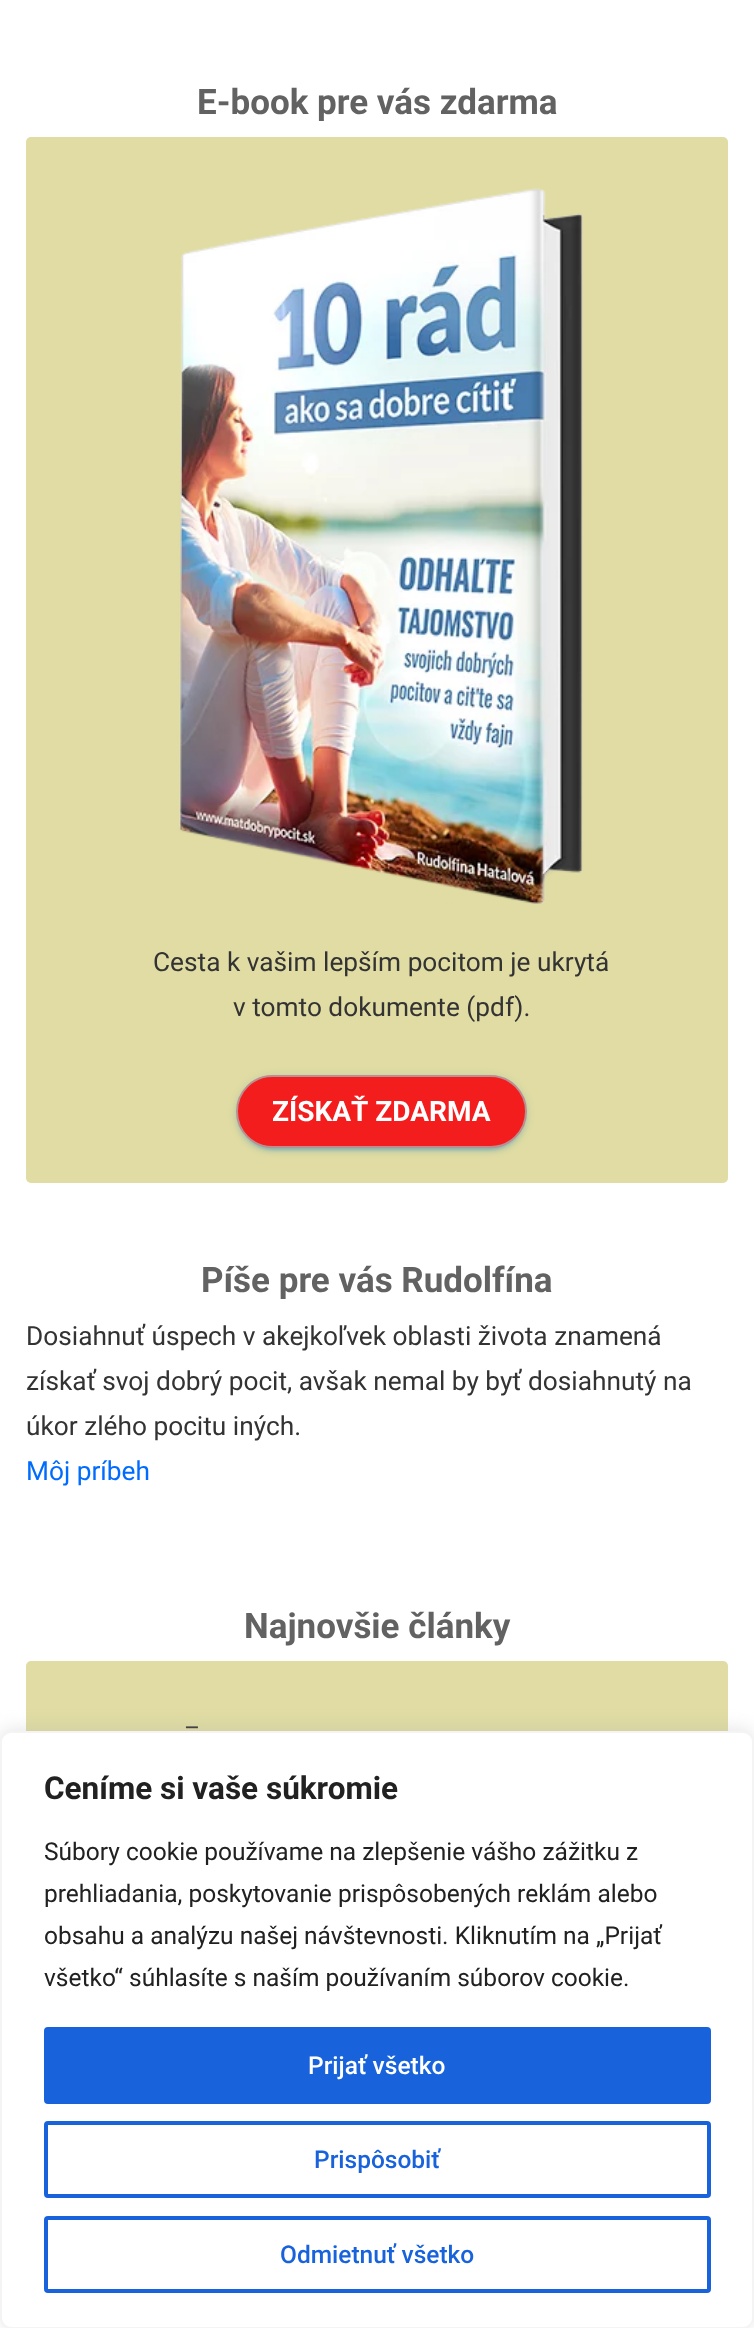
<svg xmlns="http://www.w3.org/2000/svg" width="754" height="2328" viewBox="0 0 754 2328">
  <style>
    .t1 { font: bold 35px Roboto; fill: #636262; }
    .t2 { font: 26.25px Roboto; fill: #333; }
    .t3 { font: bold 28px Roboto; fill: #fff; }
    .t4 { font: 26.25px Roboto; fill: #006cff; }
    .t5 { font: 24.5px Roboto; fill: #333; }
    .t6 { font: bold 31.5px Roboto; fill: #212121; }
    .t7 { font: 24.5px Roboto; fill: #212121; }
    .t8 { font: 500 24.5px Roboto; fill: #fff; }
    .t9 { font: 500 24.5px Roboto; fill: #1863dc; }
  </style>
  <rect width="100%" height="100%" fill="#fff"/>
  <text x="197" y="114" class="t1">E-book pre vás zdarma</text>
  <rect x="26" y="137" width="702" height="1046" rx="5" fill="#e0dca3"/>
  <image x="178" y="188" width="405" height="717" href="images/1.png"/>
  <text x="153" y="971" class="t2">Cesta k vašim lepším pocitom je ukrytá</text>
  <text x="233" y="1016" class="t2">v tomto dokumente (pdf).</text>
  <rect x="236" y="1076" width="291" height="74" rx="37" fill="#0072bc1f" filter="blur(4.5px)"/>
  <rect x="240" y="1083" width="283" height="67" rx="33.5" fill="#0072bc33" filter="blur(1px)"/>
  <rect x="236" y="1078" width="291" height="74" rx="37" fill="#0072bc24" filter="blur(2px)"/>
  <rect x="237" y="1076" width="289" height="71" rx="35.5" fill="#f31d1d" stroke="#ba8f8f" stroke-width="2"/>
  <text x="272" y="1121" class="t3">ZÍSKAŤ ZDARMA</text>
  <text x="201" y="1292" class="t1">Píše pre vás Rudolfína</text>
  <text x="26" y="1345" class="t2">Dosiahnuť úspech v akejkoľvek oblasti života znamená</text>
  <text x="26" y="1390" class="t2">získať svoj dobrý pocit, avšak nemal by byť dosiahnutý na</text>
  <text x="26" y="1435" class="t2">úkor zlého pocitu iných.</text>
  <text x="26" y="1480" class="t4">Môj príbeh</text>
  <text x="244" y="1638" class="t1">Najnovšie články</text>
  <rect x="26" y="1661" width="702" height="483" rx="5" fill="#e0dca3"/>
  <text x="184" y="1736" class="t5">–</text>
  <rect x="0" y="1729" width="754" height="599" rx="11" fill="#acabab4d" filter="blur(9px)"/>
  <rect x="1" y="1732" width="752" height="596" rx="10" fill="#fff" stroke="#f4f4f4" stroke-width="2"/>
  <text x="44" y="1799" class="t6">Ceníme si vaše súkromie</text>
  <text x="44" y="1860" class="t7">Súbory cookie používame na zlepšenie vášho zážitku z</text>
  <text x="44" y="1902" class="t7">prehliadania, poskytovanie prispôsobených reklám alebo</text>
  <text x="44" y="1944" class="t7">obsahu a analýzu našej návštevnosti. Kliknutím na „Prijať</text>
  <text x="44" y="1986" class="t7">všetko“ súhlasíte s naším používaním súborov cookie.</text>
  <rect x="46" y="2029" width="663" height="73" rx="2" fill="#1863dc" stroke="#1863dc" stroke-width="4"/>
  <text x="308" y="2074" class="t8">Prijať všetko</text>
  <rect x="46" y="2123" width="663" height="73" rx="2" fill="none" stroke="#1863dc" stroke-width="4"/>
  <text x="314" y="2168" class="t9">Prispôsobiť</text>
  <rect x="46" y="2218" width="663" height="73" rx="2" fill="none" stroke="#1863dc" stroke-width="4"/>
  <text x="280" y="2263" class="t9">Odmietnuť všetko</text>
</svg>
